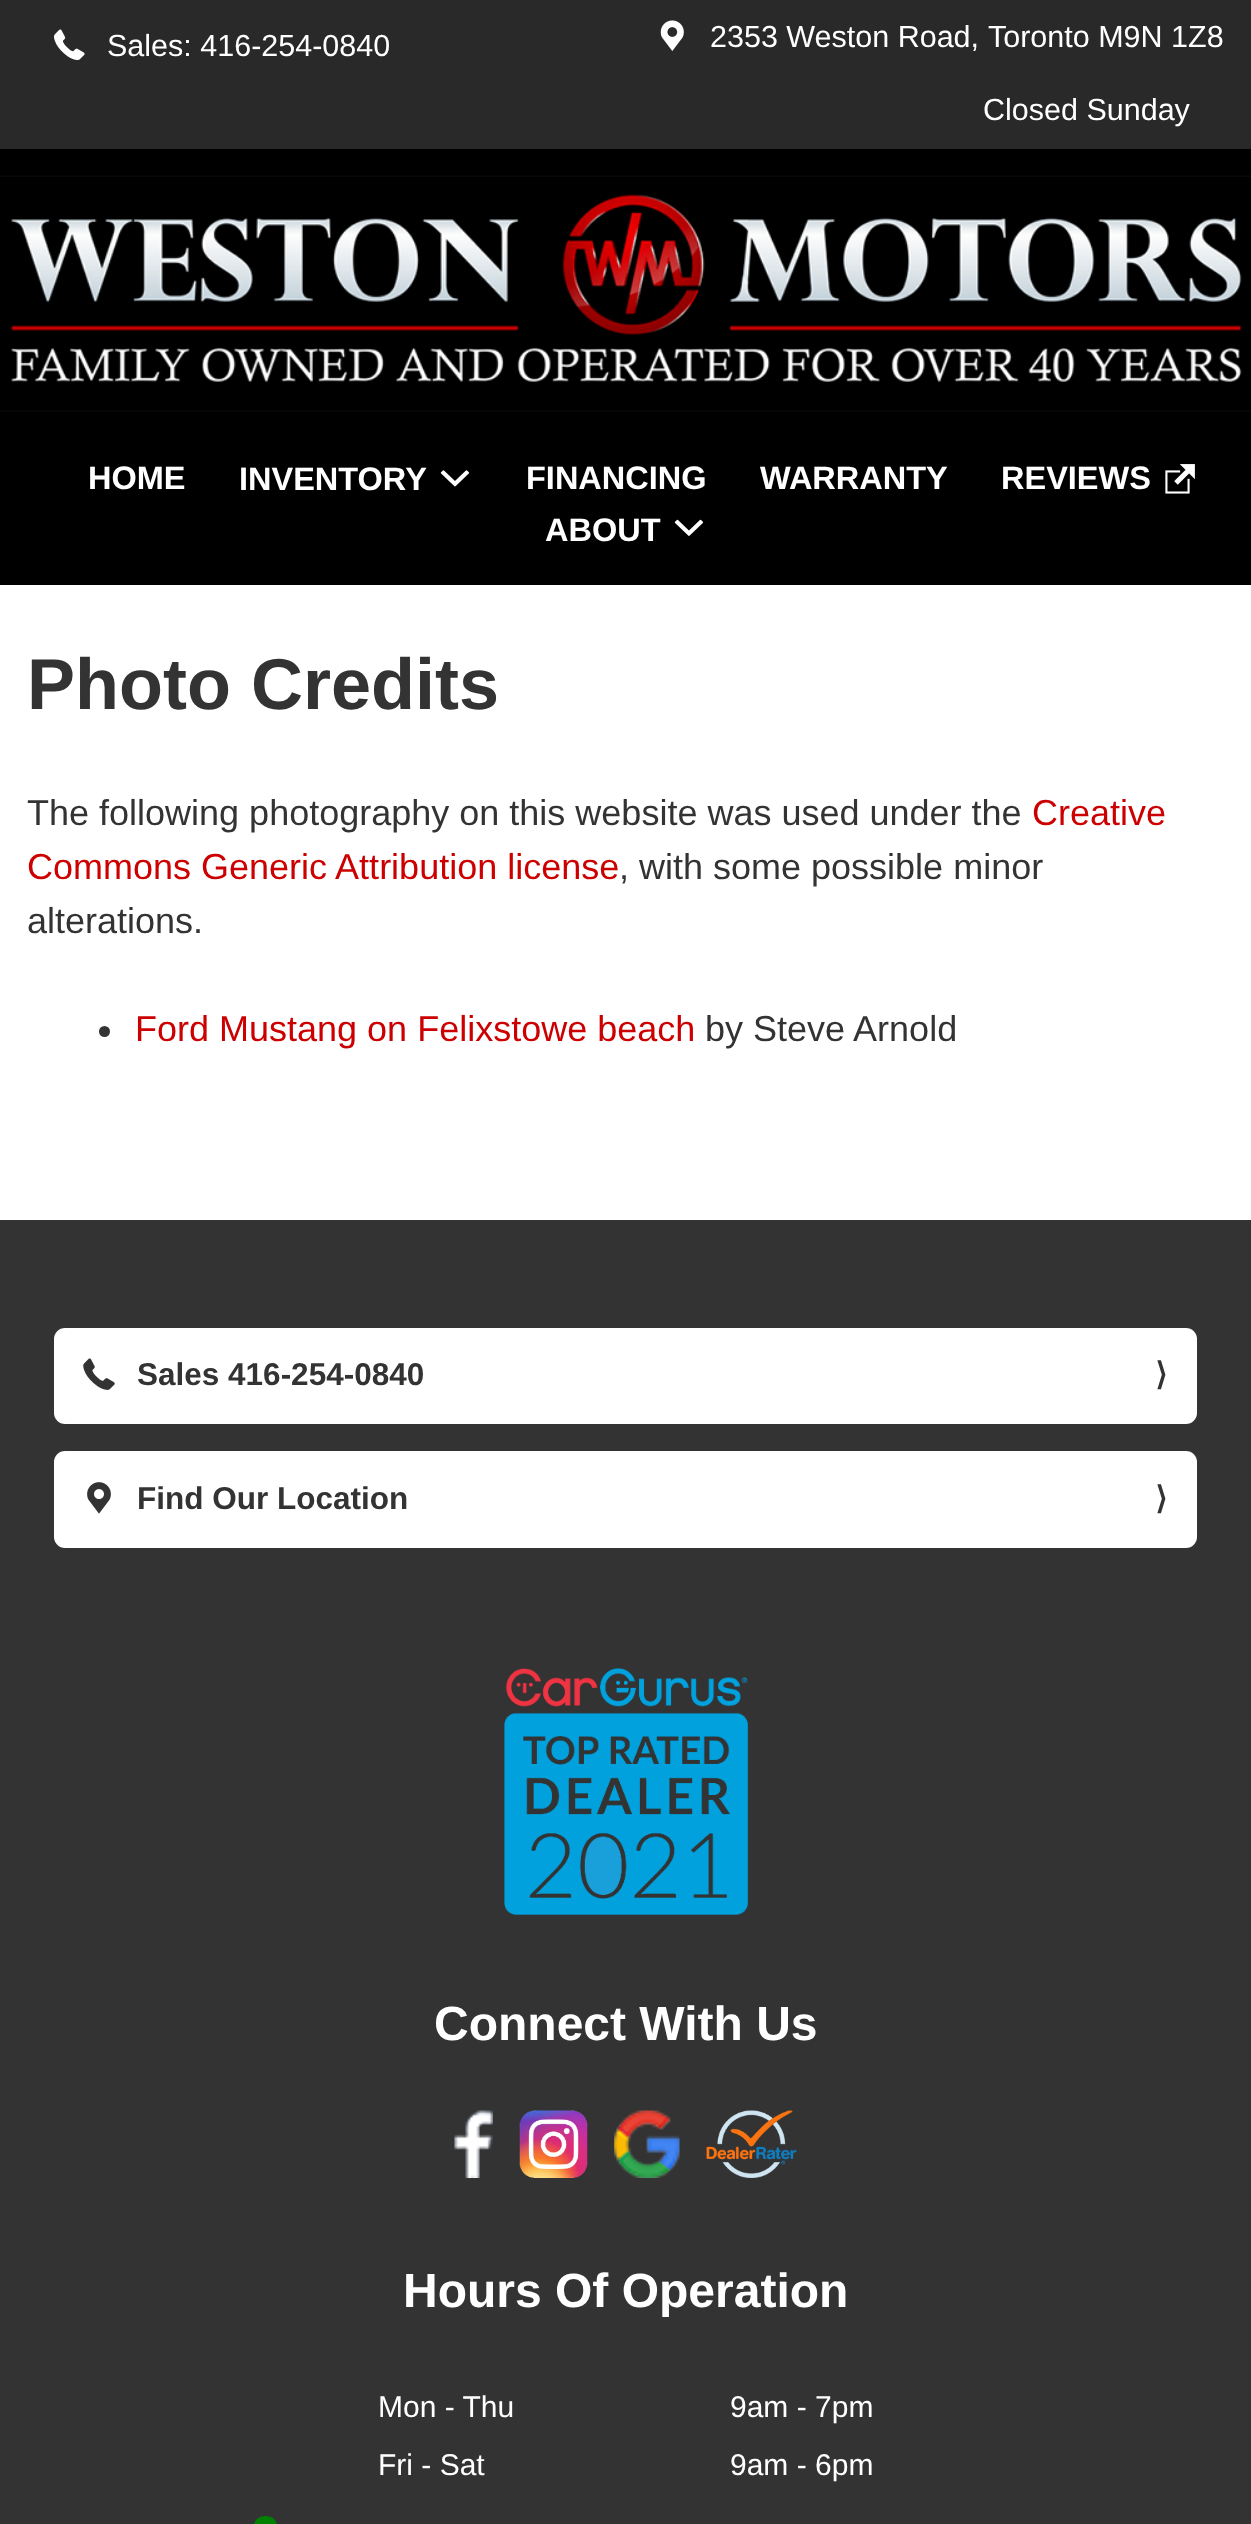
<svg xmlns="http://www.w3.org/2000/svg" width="1251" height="2524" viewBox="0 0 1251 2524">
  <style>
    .t1 { font: 30.5px Liberation Sans; fill: #fff; }
    .t2 { font: bold 32.5px Liberation Sans; fill: #fff; }
    .t3 { font: bold 72px Liberation Sans; fill: #333; }
    .t4 { font: 36px Liberation Sans; fill: #333; }
    .t5 { font: 36px Liberation Sans; fill: #c00; }
    .t6 { font: bold 31.5px Liberation Sans; fill: #333; }
    .t7 { font: bold 31.5px DejaVu Sans; fill: #333; }
    .t8 { font: bold 48px Liberation Sans; fill: #fff; }
    .t9 { font: 30px Liberation Sans; fill: #fff; }
  </style>
  <rect width="100%" height="100%" fill="#333"/>
  <rect x="0" y="0" width="1251" height="149" fill="#292929"/>
  <image x="54" y="29" width="31" height="32" href="images/1.png"/>
  <text x="107" y="56" class="t1">Sales: 416-254-0840</text>
  <image x="660" y="20" width="24" height="31" href="images/2.png"/>
  <text x="710" y="47" class="t1">2353 Weston Road,</text>
  <text x="988" y="47" class="t1">Toronto M9N 1Z8</text>
  <text x="983" y="120" class="t1">Closed Sunday</text>
  <rect x="0" y="149" width="1251" height="436" fill="#000"/>
  <image x="0" y="175" width="1251" height="237" href="images/3.png"/>
  <text x="88" y="489" class="t2">HOME</text>
  <text x="239" y="490" class="t2">INVENTORY</text>
  <image x="440" y="470" width="30" height="17" href="images/4.png"/>
  <text x="526" y="489" class="t2">FINANCING</text>
  <text x="760" y="489" class="t2">WARRANTY</text>
  <text x="1001" y="489" class="t2">REVIEWS</text>
  <image x="1165" y="464" width="30" height="30" href="images/5.png"/>
  <text x="545" y="541" class="t2">ABOUT</text>
  <image x="674" y="519" width="30" height="17" href="images/6.png"/>
  <rect x="0" y="585" width="1251" height="635" fill="#fff"/>
  <text x="27" y="709" class="t3">Photo Credits</text>
  <text x="27" y="825" class="t4">The following photography on this website was used under the</text>
  <text x="1032" y="825" class="t5">Creative</text>
  <text x="27" y="879" class="t5">Commons Generic Attribution license</text>
  <text x="619" y="879" class="t4">, with some possible minor</text>
  <text x="27" y="933" class="t4">alterations.</text>
  <circle cx="104.5" cy="1031.5" r="5.5" fill="#333"/>
  <text x="135" y="1041" class="t5">Ford Mustang on Felixstowe beach</text>
  <text x="705" y="1041" class="t4">by Steve Arnold</text>
  <rect x="54" y="1328" width="1143" height="96" rx="11" fill="#fff"/>
  <image x="83" y="1358" width="32" height="32" href="images/7.png"/>
  <text x="137" y="1385" class="t6">Sales 416-254-0840</text>
  <text x="1155" y="1385" class="t7">⟩</text>
  <rect x="54" y="1451" width="1143" height="97" rx="11" fill="#fff"/>
  <image x="87" y="1482" width="24" height="32" href="images/8.png"/>
  <text x="137" y="1509" class="t6">Find Our Location</text>
  <text x="1155" y="1509" class="t7">⟩</text>
  <image x="504" y="1668" width="245" height="247" href="images/9.png"/>
  <text x="434" y="2040" class="t8">Connect With Us</text>
  <image x="454" y="2110" width="39" height="68" href="images/10.png"/>
  <image x="519" y="2110" width="69" height="68" href="images/11.png"/>
  <image x="614" y="2110" width="66" height="68" href="images/12.png"/>
  <image x="706" y="2110" width="91" height="68" href="images/13.png"/>
  <text x="403" y="2307" class="t8">Hours Of Operation</text>
  <text x="378" y="2417" class="t9">Mon - Thu</text>
  <text x="730" y="2417" class="t9">9am - 7pm</text>
  <text x="378" y="2475" class="t9">Fri - Sat</text>
  <text x="730" y="2475" class="t9">9am - 6pm</text>
  <rect x="254" y="2516" width="23" height="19" rx="11" fill="#008000"/>
</svg>
